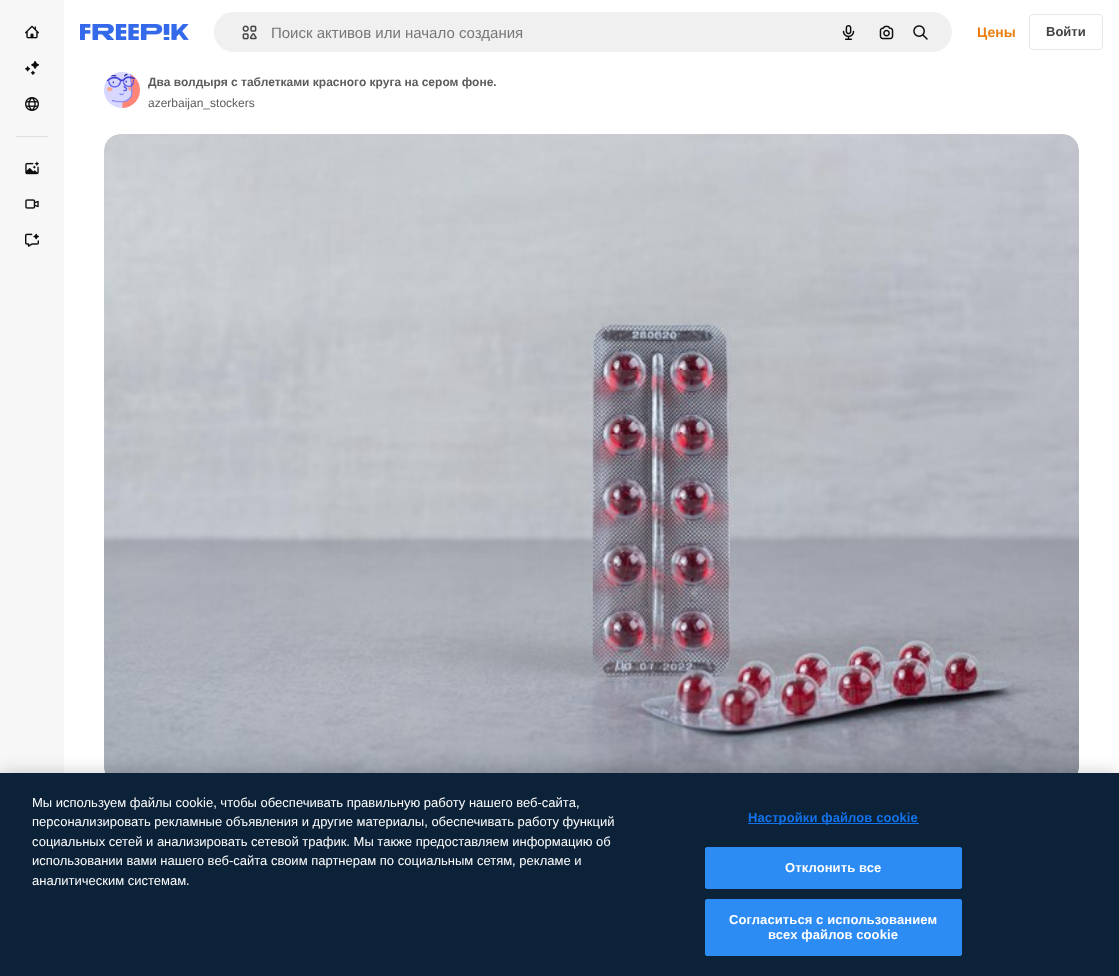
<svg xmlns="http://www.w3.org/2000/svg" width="1119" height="976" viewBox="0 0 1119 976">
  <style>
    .t1 { font: 15px Liberation Sans; fill: #777; }
    .t2 { font: bold 14px Liberation Sans; fill: #ea7e11; }
    .t3 { font: bold 13px Liberation Sans; fill: #424242; }
    .t4 { font: bold 12px Liberation Sans; fill: #5c5c5c; }
    .t5 { font: 12px Liberation Sans; fill: #5c5c5c; }
    .t6 { font: 13px Liberation Sans; fill: #fff; }
    .t7 { font: bold 13px Liberation Sans; letter-spacing: 0.1px; fill: #1273eb; }
    .t8 { font: bold 13px Liberation Sans; letter-spacing: 0.1px; fill: #fff; }
  </style>
  <rect width="100%" height="100%" fill="#fff"/>
  <rect x="0" y="0" width="64" height="773" fill="#f7f7f7"/>
  <image x="25" y="25" width="14" height="14" href="images/1.png"/>
  <image x="25" y="61" width="14" height="14" href="images/2.png"/>
  <image x="25" y="97" width="14" height="14" href="images/3.png"/>
  <rect x="16" y="136" width="32" height="1" fill="#e0e0e0"/>
  <image x="25" y="161" width="14" height="14" href="images/4.png"/>
  <image x="25" y="199" width="14" height="10" href="images/5.png"/>
  <image x="25" y="233" width="14" height="14" href="images/6.png"/>
  <image x="80" y="24" width="109" height="16" href="images/7.png"/>
  <rect x="213.5" y="11.5" width="739" height="41" rx="20.5" fill="#f0f0f0" stroke="#fff"/>
  <image x="242" y="25" width="15" height="15" href="images/8.png"/>
  <text x="271" y="38" class="t1">Поиск активов или начало создания</text>
  <image x="842" y="25" width="13" height="15" href="images/9.png"/>
  <image x="879" y="25" width="15" height="15" href="images/10.png"/>
  <image x="913" y="25" width="15" height="15" href="images/11.png"/>
  <text x="977" y="37" class="t2">Цены</text>
  <rect x="1029.5" y="14.5" width="73" height="35" rx="3.5" fill="none" stroke="#e7e7e7"/>
  <text x="1046" y="36" class="t3">Войти</text>
  <image x="104" y="72" width="36" height="36" href="images/12.png"/>
  <text x="148" y="86" class="t4">Два волдыря с таблетками красного круга на сером фоне.</text>
  <text x="148" y="107" class="t5">azerbaijan_stockers</text>
  <image x="104" y="134" width="975" height="639" href="images/13.png"/>
  <rect x="0" y="773" width="1119" height="203" fill="#00000033" filter="blur(9px)"/>
  <rect x="0" y="773" width="1119" height="203" fill="#0b2239"/>
  <text x="32" y="807" class="t6">Мы используем файлы cookie, чтобы обеспечивать правильную работу нашего веб-сайта,</text>
  <text x="32" y="826" class="t6">персонализировать рекламные объявления и другие материалы, обеспечивать работу функций</text>
  <text x="32" y="846" class="t6">социальных сетей и анализировать сетевой трафик. Мы также предоставляем информацию об</text>
  <text x="32" y="865" class="t6">использовании вами нашего веб-сайта своим партнерам по социальным сетям, рекламе и</text>
  <text x="32" y="885" class="t6">аналитическим системам.</text>
  <rect x="748" y="823" width="171" height="1" fill="#1273eb"/>
  <text x="748" y="822" class="t7">Настройки файлов cookie</text>
  <rect x="705.5" y="847.5" width="256" height="41" rx="1.5" fill="#2c8cf4" stroke="#2c8cf4"/>
  <text x="785" y="872" class="t8">Отклонить все</text>
  <rect x="705.5" y="899.5" width="256" height="56" rx="1.5" fill="#2c8cf4" stroke="#2c8cf4"/>
  <text x="729" y="924" class="t8">Согласиться с использованием</text>
  <text x="768" y="939" class="t8">всех файлов cookie</text>
</svg>
